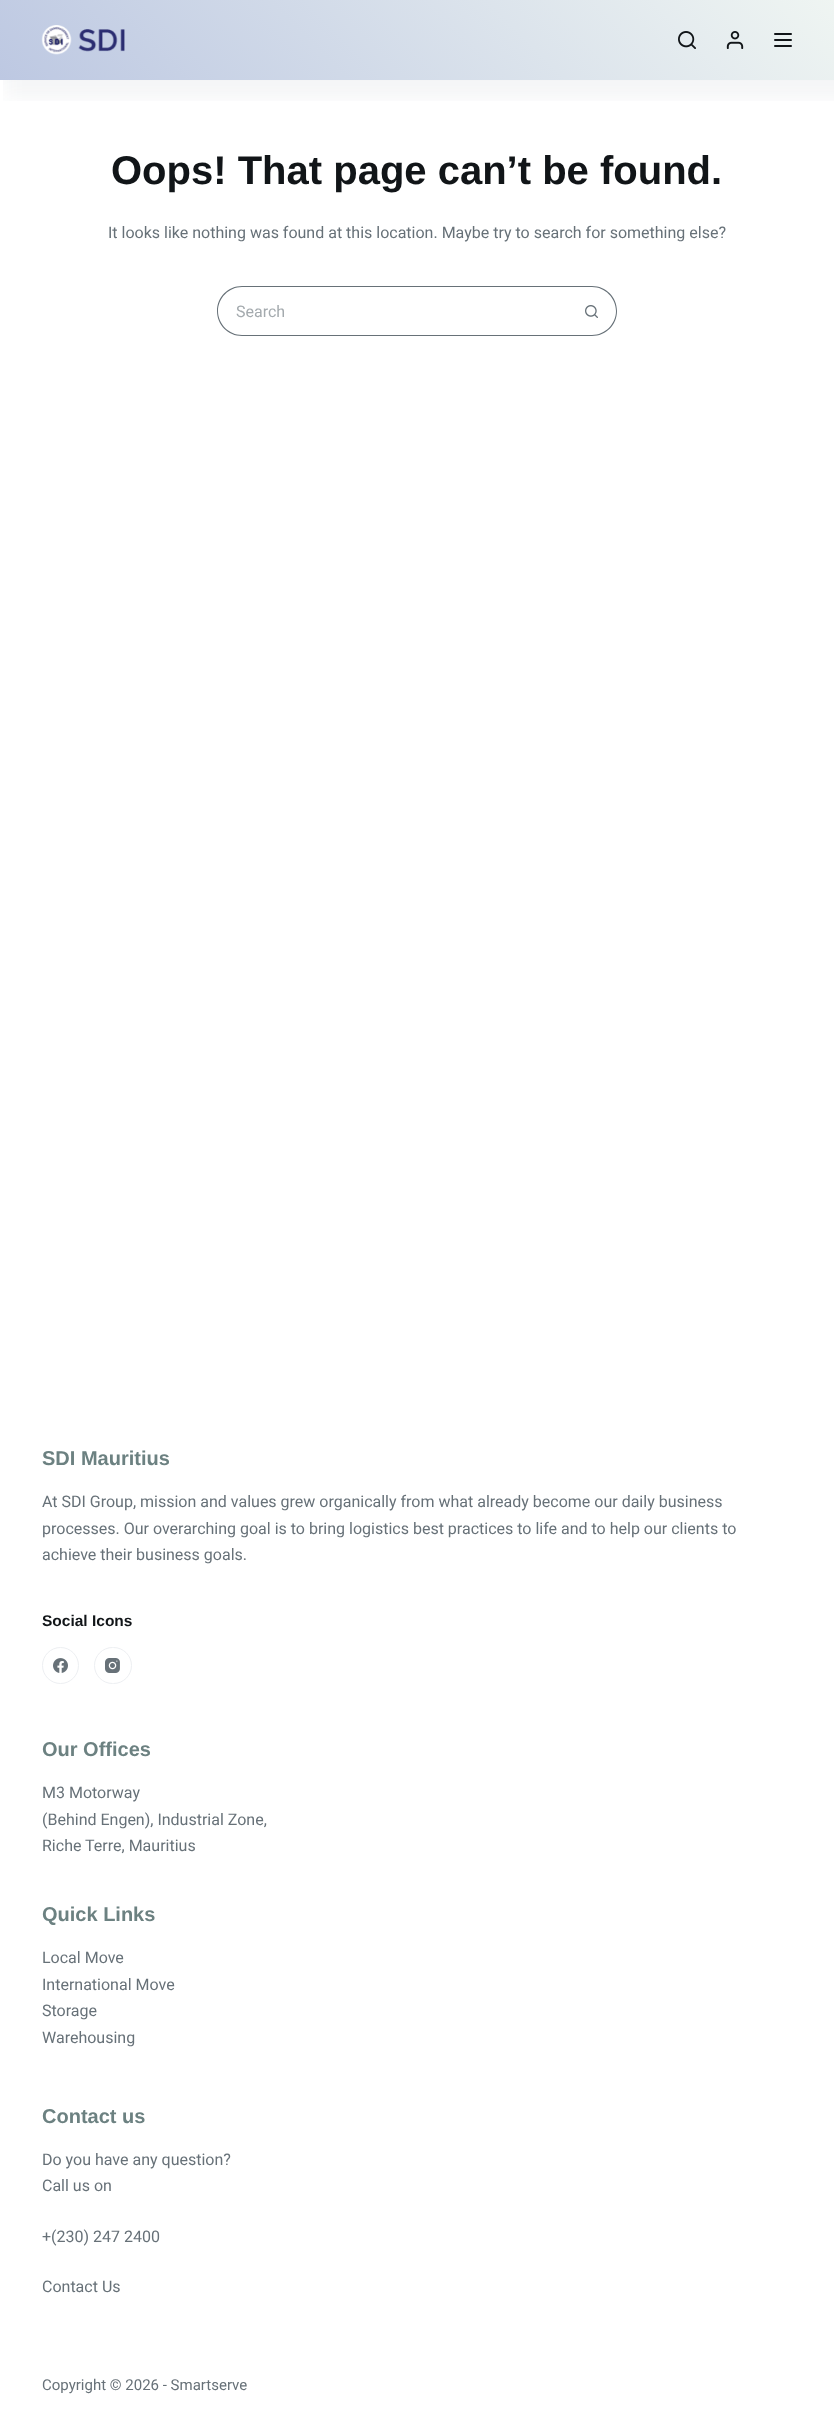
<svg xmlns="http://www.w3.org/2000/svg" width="834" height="2420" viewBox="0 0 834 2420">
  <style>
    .t1 { font: bold 40px Liberation Sans; fill: #111518; }
    .t2 { font: 16px Roboto; fill: #677178; }
    .t3 { font: 16px Roboto; fill: #a4aaae; }
    .t4 { font: bold 20px Liberation Sans; fill: #6c8181; }
    .t5 { font: bold 15.5px Liberation Sans; fill: #111518; }
    .t6 { font: 15px Roboto; fill: #677178; }
  </style>
  <defs>
    <linearGradient id="g1" gradientUnits="userSpaceOnUse" x1="189" y1="269" x2="646" y2="-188"><stop offset="0" stop-color="#bdc8e2"/><stop offset="1" stop-color="#eff5f2"/></linearGradient>
    <clipPath id="clip1"><rect x="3" y="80" width="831" height="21"/></clipPath>
  </defs>
  <rect width="100%" height="100%" fill="#fff"/>
  <rect x="0" y="0" width="834" height="80" fill="url(#g1)"/>
  <g clip-path="url(#clip1)">
    <rect x="5" y="2" width="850" height="96" fill="#2c3e500d" filter="blur(10px)"/>
  </g>
  <image x="41" y="25" width="84" height="30" href="images/1.png"/>
  <image x="678" y="31" width="18" height="18" href="images/2.png"/>
  <image x="726" y="31" width="18" height="18" href="images/3.png"/>
  <rect x="774" y="33" width="18" height="2" rx="1" fill="#111518"/>
  <rect x="774" y="39" width="18" height="2" rx="1" fill="#111518"/>
  <rect x="774" y="45" width="18" height="2" rx="1" fill="#111518"/>
  <text x="111" y="184" class="t1">Oops! That page can’t be found.</text>
  <text x="108" y="238" class="t2">It looks like nothing was found at this location. Maybe try to search for something else?</text>
  <path d="M242 286H567V336H242C228 336 217 325 217 311C217 297 228 286 242 286ZM242 287H567V335H242C229 335 218 324 218 311C218 298 229 287 242 287Z" fill="#677178" fill-rule="evenodd"/>
  <text x="236" y="317" class="t3">Search</text>
  <path d="M567 286H592C606 286 617 297 617 311C617 325 606 336 592 336H567ZM567 287H592C605 287 616 298 616 311C616 324 605 335 592 335H567Z" fill="#677178" fill-rule="evenodd"/>
  <image x="585" y="305" width="13" height="13" href="images/4.png"/>
  <text x="42" y="1465" class="t4">SDI Mauritius</text>
  <text x="42" y="1507" class="t2">At SDI Group, mission and values grew organically from what already become our daily business</text>
  <text x="42" y="1534" class="t2">processes. Our overarching goal is to bring logistics best practices to life and to help our clients to</text>
  <text x="42" y="1560" class="t2">achieve their business goals.</text>
  <text x="42" y="1626" class="t5">Social Icons</text>
  <circle cx="60.5" cy="1665.5" r="18" fill="none" stroke="#edeff2"/>
  <image x="53" y="1658" width="15" height="15" href="images/5.png"/>
  <rect x="94.5" y="1647.5" width="37" height="36" rx="18" fill="none" stroke="#edeff2"/>
  <image x="105" y="1658" width="15" height="15" href="images/6.png"/>
  <text x="42" y="1756" class="t4">Our Offices</text>
  <text x="42" y="1798" class="t2">M3 Motorway</text>
  <text x="42" y="1825" class="t2">(Behind Engen), Industrial Zone,</text>
  <text x="42" y="1851" class="t2">Riche Terre, Mauritius</text>
  <text x="42" y="1921" class="t4">Quick Links</text>
  <text x="42" y="1963" class="t2">Local Move</text>
  <text x="42" y="1990" class="t2">International Move</text>
  <text x="42" y="2016" class="t2">Storage</text>
  <text x="42" y="2043" class="t2">Warehousing</text>
  <text x="42" y="2123" class="t4">Contact us</text>
  <text x="42" y="2165" class="t2">Do you have any question?</text>
  <text x="42" y="2191" class="t2">Call us on</text>
  <text x="42" y="2242" class="t2">+(230) 247 2400</text>
  <text x="42" y="2292" class="t2">Contact Us</text>
  <text x="42" y="2390" class="t6">Copyright © 2026 - Smartserve</text>
</svg>
